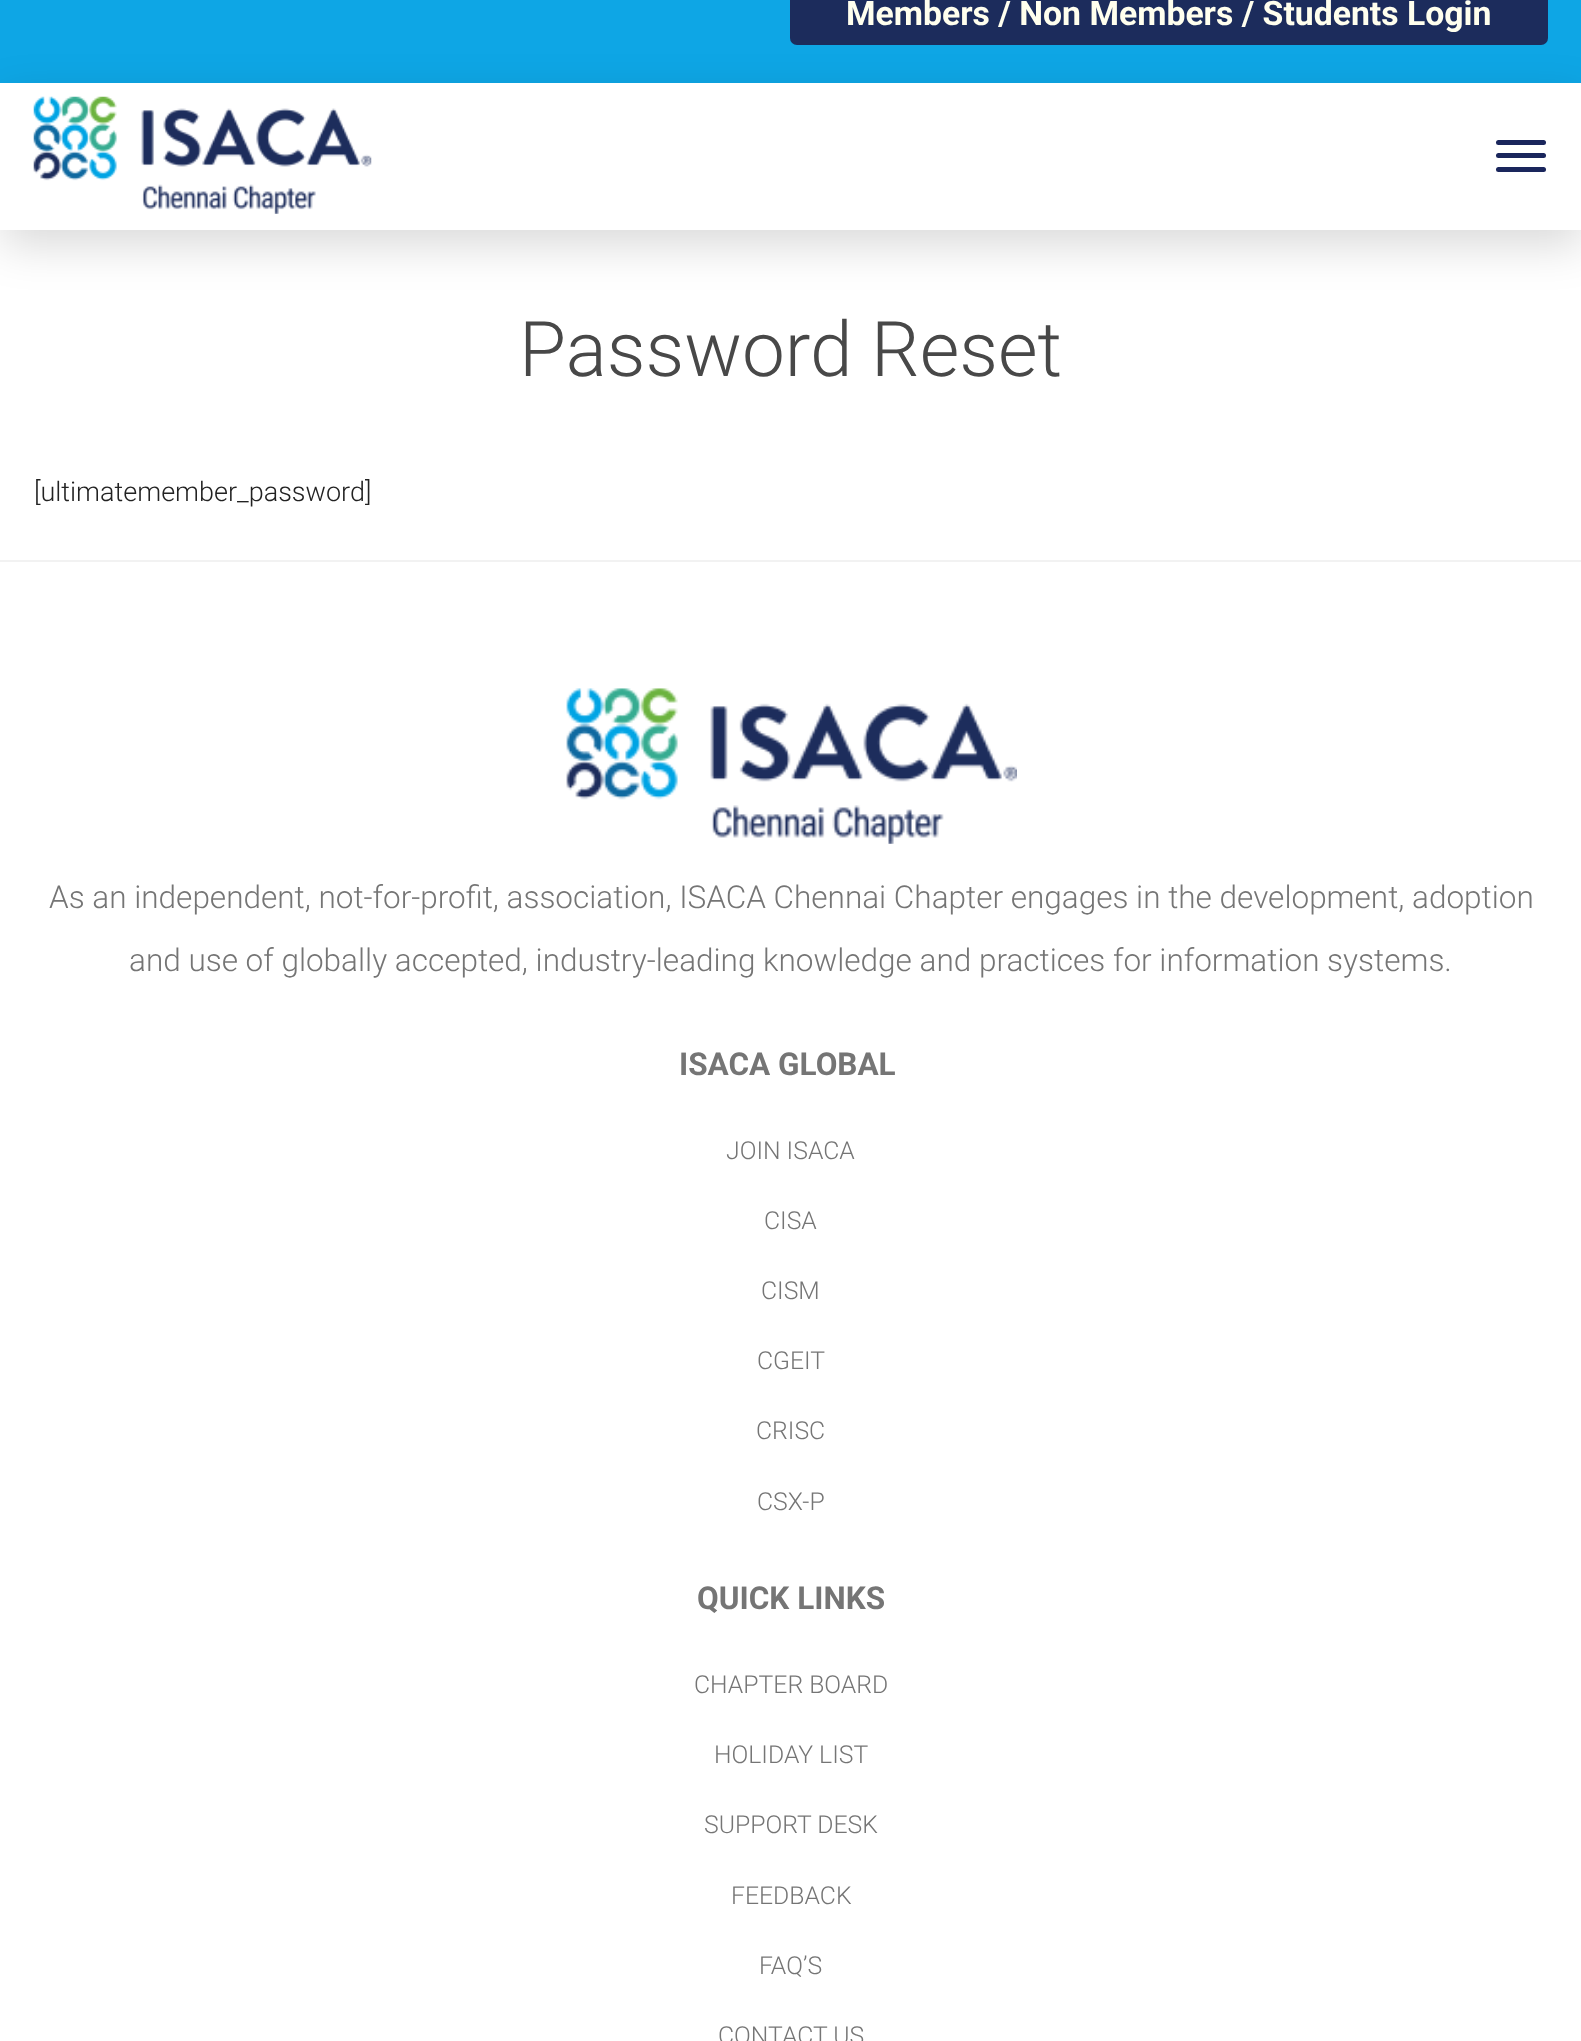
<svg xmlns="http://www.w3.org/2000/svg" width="1581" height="2041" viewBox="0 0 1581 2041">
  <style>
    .t1 { font: bold 33.75px Roboto; fill: #ffe; }
    .t2 { font: 300 76.5px Roboto; fill: #484848; }
    .t3 { font: 300 27px Roboto; fill: #222; }
    .t4 { font: 300 31.5px Roboto; fill: #757575; }
    .t5 { font: bold 31.5px Roboto; fill: #757575; }
    .t6 { font: 300 24.75px Roboto; fill: #757575; }
  </style>
  <defs>
    <clipPath id="clip1"><path d="M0 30H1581V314H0ZM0 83H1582V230H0Z" clip-rule="evenodd"/></clipPath>
  </defs>
  <rect width="100%" height="100%" fill="#fff"/>
  <rect x="0" y="0" width="1581" height="83" fill="#0ea6e5"/>
  <g clip-path="url(#clip1)">
    <rect x="2" y="99" width="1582" height="146" fill="#00000026" filter="blur(22.5px)"/>
  </g>
  <rect x="790" y="-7" width="758" height="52" rx="7" fill="#1c2c5c"/>
  <text x="846" y="25" class="t1">Members / Non Members / Students Login</text>
  <image x="33" y="96" width="339" height="118" href="images/1.png"/>
  <rect x="1496" y="140" width="50" height="5" rx="2.5" fill="#1a265c"/>
  <rect x="1496" y="153" width="50" height="5" rx="2.5" fill="#1a265c"/>
  <rect x="1496" y="167" width="50" height="5" rx="2.5" fill="#1a265c"/>
  <text x="519" y="376" class="t2">Password Reset</text>
  <text x="34" y="501" class="t3">[ultimatemember_password]</text>
  <rect x="-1" y="561" width="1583" height="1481" fill="none" stroke="#f2f2f2" stroke-width="2"/>
  <image x="566" y="688" width="451" height="156" href="images/2.png"/>
  <text x="49" y="908" class="t4">As an independent, not-for-profit, association, ISACA Chennai Chapter engages in the development, adoption</text>
  <text x="129" y="971" class="t4">and use of globally accepted, industry-leading knowledge and practices for information systems.</text>
  <text x="679" y="1075" class="t5">ISACA GLOBAL</text>
  <text x="726" y="1159" class="t6">JOIN ISACA</text>
  <text x="764" y="1229" class="t6">CISA</text>
  <text x="761" y="1299" class="t6">CISM</text>
  <text x="757" y="1369" class="t6">CGEIT</text>
  <text x="756" y="1439" class="t6">CRISC</text>
  <text x="757" y="1510" class="t6">CSX-P</text>
  <text x="697" y="1609" class="t5">QUICK LINKS</text>
  <text x="694" y="1693" class="t6">CHAPTER BOARD</text>
  <text x="714" y="1763" class="t6">HOLIDAY LIST</text>
  <text x="704" y="1833" class="t6">SUPPORT DESK</text>
  <text x="731" y="1904" class="t6">FEEDBACK</text>
  <text x="759" y="1974" class="t6">FAQ’S</text>
  <text x="718" y="2044" class="t6">CONTACT US</text>
</svg>
